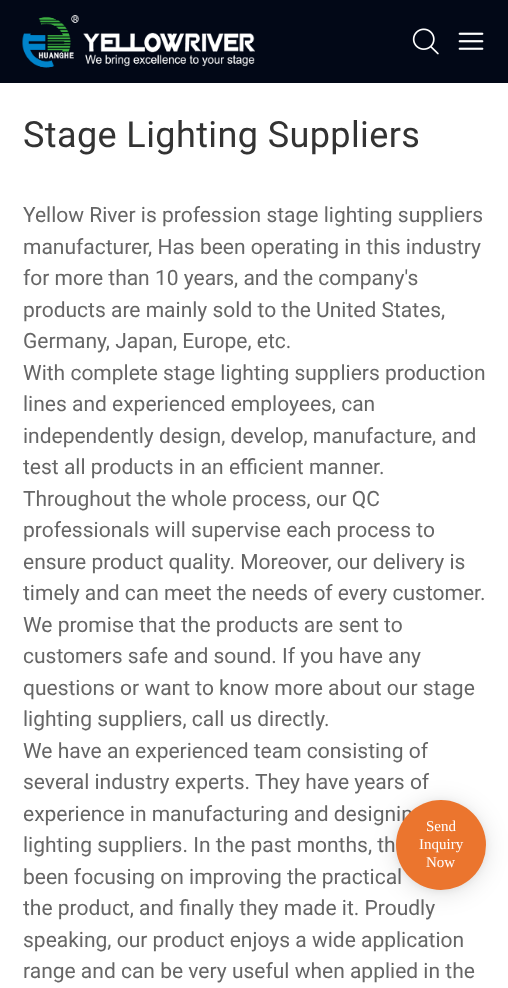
<svg xmlns="http://www.w3.org/2000/svg" width="508" height="988" viewBox="0 0 508 988">
  <style>
    .t1 { font: 36px Roboto; letter-spacing: 0.4px; fill: #333; }
    .t2 { font: 21px Roboto; fill: #666; }
    .t3 { font: 15px Liberation Serif; fill: #fff; }
  </style>
  <rect width="100%" height="100%" fill="#fff"/>
  <rect x="0" y="0" width="508" height="83" fill="#020817"/>
  <image x="22" y="15" width="233" height="53" href="images/1.png"/>
  <image x="412" y="28" width="27" height="27" href="images/2.png"/>
  <image x="458" y="32" width="26" height="18" href="images/3.png"/>
  <text x="23" y="147" class="t1">Stage Lighting Suppliers</text>
  <text x="23" y="222" class="t2">Yellow River is profession stage lighting suppliers</text>
  <text x="23" y="254" class="t2">manufacturer, Has been operating in this industry</text>
  <text x="23" y="285" class="t2">for more than 10 years, and the company's</text>
  <text x="23" y="317" class="t2">products are mainly sold to the United States,</text>
  <text x="23" y="348" class="t2">Germany, Japan, Europe, etc.</text>
  <text x="23" y="380" class="t2">With complete stage lighting suppliers production</text>
  <text x="23" y="411" class="t2">lines and experienced employees, can</text>
  <text x="23" y="443" class="t2">independently design, develop, manufacture, and</text>
  <text x="23" y="474" class="t2">test all products in an efficient manner.</text>
  <text x="23" y="506" class="t2">Throughout the whole process, our QC</text>
  <text x="23" y="537" class="t2">professionals will supervise each process to</text>
  <text x="23" y="569" class="t2">ensure product quality. Moreover, our delivery is</text>
  <text x="23" y="600" class="t2">timely and can meet the needs of every customer.</text>
  <text x="23" y="632" class="t2">We promise that the products are sent to</text>
  <text x="23" y="663" class="t2">customers safe and sound. If you have any</text>
  <text x="23" y="695" class="t2">questions or want to know more about our stage</text>
  <text x="23" y="726" class="t2">lighting suppliers, call us directly.</text>
  <text x="23" y="758" class="t2">We have an experienced team consisting of</text>
  <text x="23" y="789" class="t2">several industry experts. They have years of</text>
  <text x="23" y="821" class="t2">experience in manufacturing and designin</text>
  <text x="23" y="852" class="t2">lighting suppliers. In the past months, th</text>
  <text x="23" y="884" class="t2">been focusing on improving the practical</text>
  <text x="23" y="915" class="t2">the product, and finally they made it. Proudly</text>
  <text x="23" y="947" class="t2">speaking, our product enjoys a wide application</text>
  <text x="23" y="978" class="t2">range and can be very useful when applied in the</text>
  <rect x="396" y="803" width="90" height="90" rx="45" fill="#0000001f" filter="blur(12px)"/>
  <rect x="396" y="801" width="90" height="90" rx="45" fill="#0000000f" filter="blur(3px)"/>
  <circle cx="441" cy="845" r="45" fill="#eb752e"/>
  <text x="426" y="831" class="t3">Send</text>
  <text x="419" y="849" class="t3">Inquiry</text>
  <text x="426" y="867" class="t3">Now</text>
</svg>
